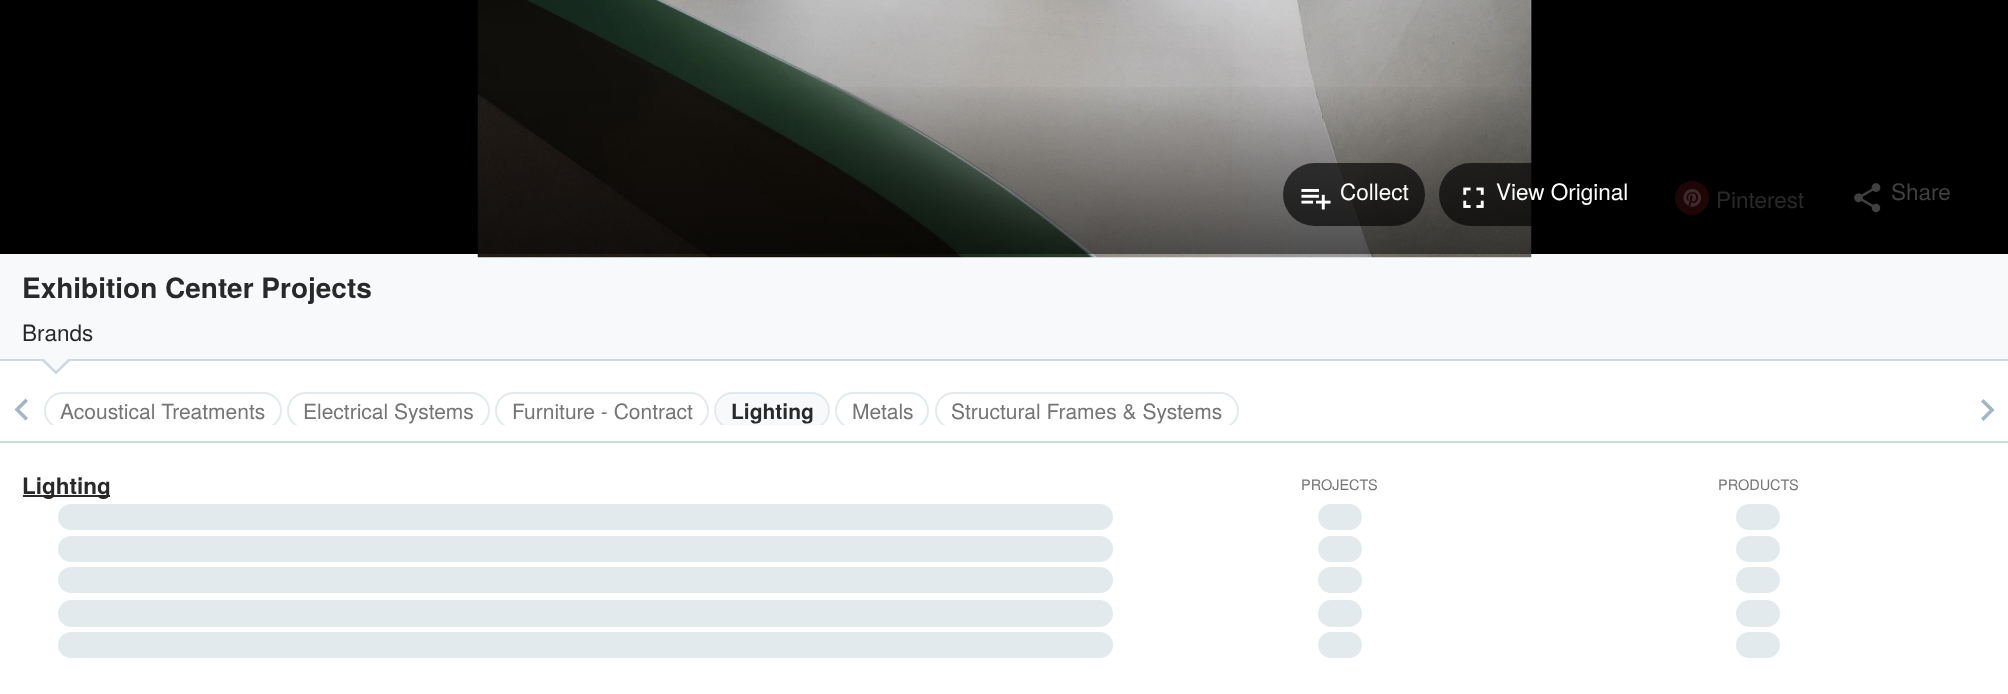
<svg xmlns="http://www.w3.org/2000/svg" width="2008" height="694" viewBox="0 0 2008 694">
  <style>
    .t1 { font: 22.5px TeX Gyre Heros; fill: #fff; }
    .t2 { font: 22.5px TeX Gyre Heros; fill: #292929; }
    .t3 { font: 22.5px TeX Gyre Heros; fill: #404040; }
    .t4 { font: bold 28px TeX Gyre Heros; fill: #292929; }
    .t5 { font: 21px TeX Gyre Heros; fill: #757575; }
    .t6 { font: bold 21px TeX Gyre Heros; fill: #292929; }
    .t7 { font: bold 22.5px TeX Gyre Heros; fill: #292929; }
    .t8 { font: 14.5px TeX Gyre Heros; fill: #757575; }
  </style>
  <defs>
    <linearGradient id="g1" gradientUnits="userSpaceOnUse" x1="1005" y1="254" x2="1005" y2="79"><stop offset="0" stop-color="#000" stop-opacity="0.5"/><stop offset="1" stop-color="#000" stop-opacity="0"/></linearGradient>
    <clipPath id="clip1"><rect x="44" y="382" width="1921" height="43"/></clipPath>
  </defs>
  <rect width="100%" height="100%" fill="#fff"/>
  <rect x="0" y="0" width="2008" height="254" fill="#000"/>
  <rect x="0" y="254" width="2008" height="105" fill="#f7f9fa"/>
  <image x="477" y="0" width="1055" height="258" href="images/1.png"/>
  <rect x="477" y="87" width="1055" height="167" fill="url(#g1)"/>
  <rect x="1283" y="163" width="142" height="63" rx="31.5" fill="#000000a6"/>
  <image x="1301" y="189" width="30" height="21" href="images/2.png"/>
  <text x="1340" y="200" class="t1">Collect</text>
  <rect x="1439" y="163" width="204" height="63" rx="31.5" fill="#000000a6"/>
  <image x="1463" y="187" width="21" height="21" href="images/3.png"/>
  <text x="1496" y="200" class="t1">View Original</text>
  <image x="1675" y="181" width="34" height="34" href="images/4.png"/>
  <text x="1716" y="208" class="t2">Pinterest</text>
  <image x="1854" y="183" width="27" height="30" href="images/5.png"/>
  <text x="1891" y="200" class="t3">Share</text>
  <rect x="0" y="359" width="2008" height="2" fill="#ced9df"/>
  <text x="22" y="298" class="t4">Exhibition Center Projects</text>
  <text x="22" y="341" class="t2">Brands</text>
  <path d="M40 359H72L56 374.5Z" fill="#ced9df"/>
  <path d="M42 357H70L56 371Z" fill="#f7f9fa"/>
  <path d="M28 418L25.5 420.5L14.5 409.5L25.5 398.5L28 401L19.5 409.5Z" fill="#a2b7c3"/>
  <g clip-path="url(#clip1)">
    <rect x="45" y="393" width="236" height="35" rx="17.5" fill="none" stroke="#e3eaed" stroke-width="2"/>
  </g>
  <text x="60" y="419" class="t5">Acoustical Treatments</text>
  <g clip-path="url(#clip1)">
    <rect x="288" y="393" width="201" height="35" rx="17.5" fill="none" stroke="#e3eaed" stroke-width="2"/>
  </g>
  <text x="303" y="419" class="t5">Electrical Systems</text>
  <g clip-path="url(#clip1)">
    <rect x="496" y="393" width="212" height="35" rx="17.5" fill="none" stroke="#e3eaed" stroke-width="2"/>
  </g>
  <text x="512" y="419" class="t5">Furniture - Contract</text>
  <g clip-path="url(#clip1)">
    <rect x="715" y="393" width="114" height="35" rx="17.5" fill="#f7f9fa" stroke="#e3eaed" stroke-width="2"/>
  </g>
  <text x="731" y="419" class="t6">Lighting</text>
  <g clip-path="url(#clip1)">
    <rect x="836" y="393" width="92" height="35" rx="17.5" fill="none" stroke="#e3eaed" stroke-width="2"/>
  </g>
  <text x="852" y="419" class="t5">Metals</text>
  <g clip-path="url(#clip1)">
    <rect x="936" y="393" width="302" height="35" rx="17.5" fill="none" stroke="#e3eaed" stroke-width="2"/>
  </g>
  <text x="951" y="419" class="t5">Structural Frames &amp; Systems</text>
  <path d="M1981 418.5L1989.5 410L1981 401.5L1983.5 399L1994.5 410L1983.5 421Z" fill="#a2b7c3"/>
  <rect x="0" y="441" width="2008" height="2" fill="#ced9df"/>
  <rect x="23" y="495" width="87" height="2" fill="#292929"/>
  <text x="22" y="494" class="t7">Lighting</text>
  <text x="1301" y="490" class="t8">PROJECTS</text>
  <text x="1718" y="490" class="t8">PRODUCTS</text>
  <rect x="58" y="504" width="1055" height="26" rx="13" fill="#e3eaed"/>
  <rect x="1318" y="504" width="44" height="26" rx="13" fill="#e3eaed"/>
  <rect x="1736" y="504" width="44" height="26" rx="13" fill="#e3eaed"/>
  <rect x="58" y="536" width="1055" height="26" rx="13" fill="#e3eaed"/>
  <rect x="1318" y="536" width="44" height="26" rx="13" fill="#e3eaed"/>
  <rect x="1736" y="536" width="44" height="26" rx="13" fill="#e3eaed"/>
  <rect x="58" y="567" width="1055" height="26" rx="13" fill="#e3eaed"/>
  <rect x="1318" y="567" width="44" height="26" rx="13" fill="#e3eaed"/>
  <rect x="1736" y="567" width="44" height="26" rx="13" fill="#e3eaed"/>
  <rect x="58" y="600" width="1055" height="27" rx="13.5" fill="#e3eaed"/>
  <rect x="1318" y="600" width="44" height="27" rx="13.5" fill="#e3eaed"/>
  <rect x="1736" y="600" width="44" height="27" rx="13.5" fill="#e3eaed"/>
  <rect x="58" y="632" width="1055" height="26" rx="13" fill="#e3eaed"/>
  <rect x="1318" y="632" width="44" height="26" rx="13" fill="#e3eaed"/>
  <rect x="1736" y="632" width="44" height="26" rx="13" fill="#e3eaed"/>
</svg>
